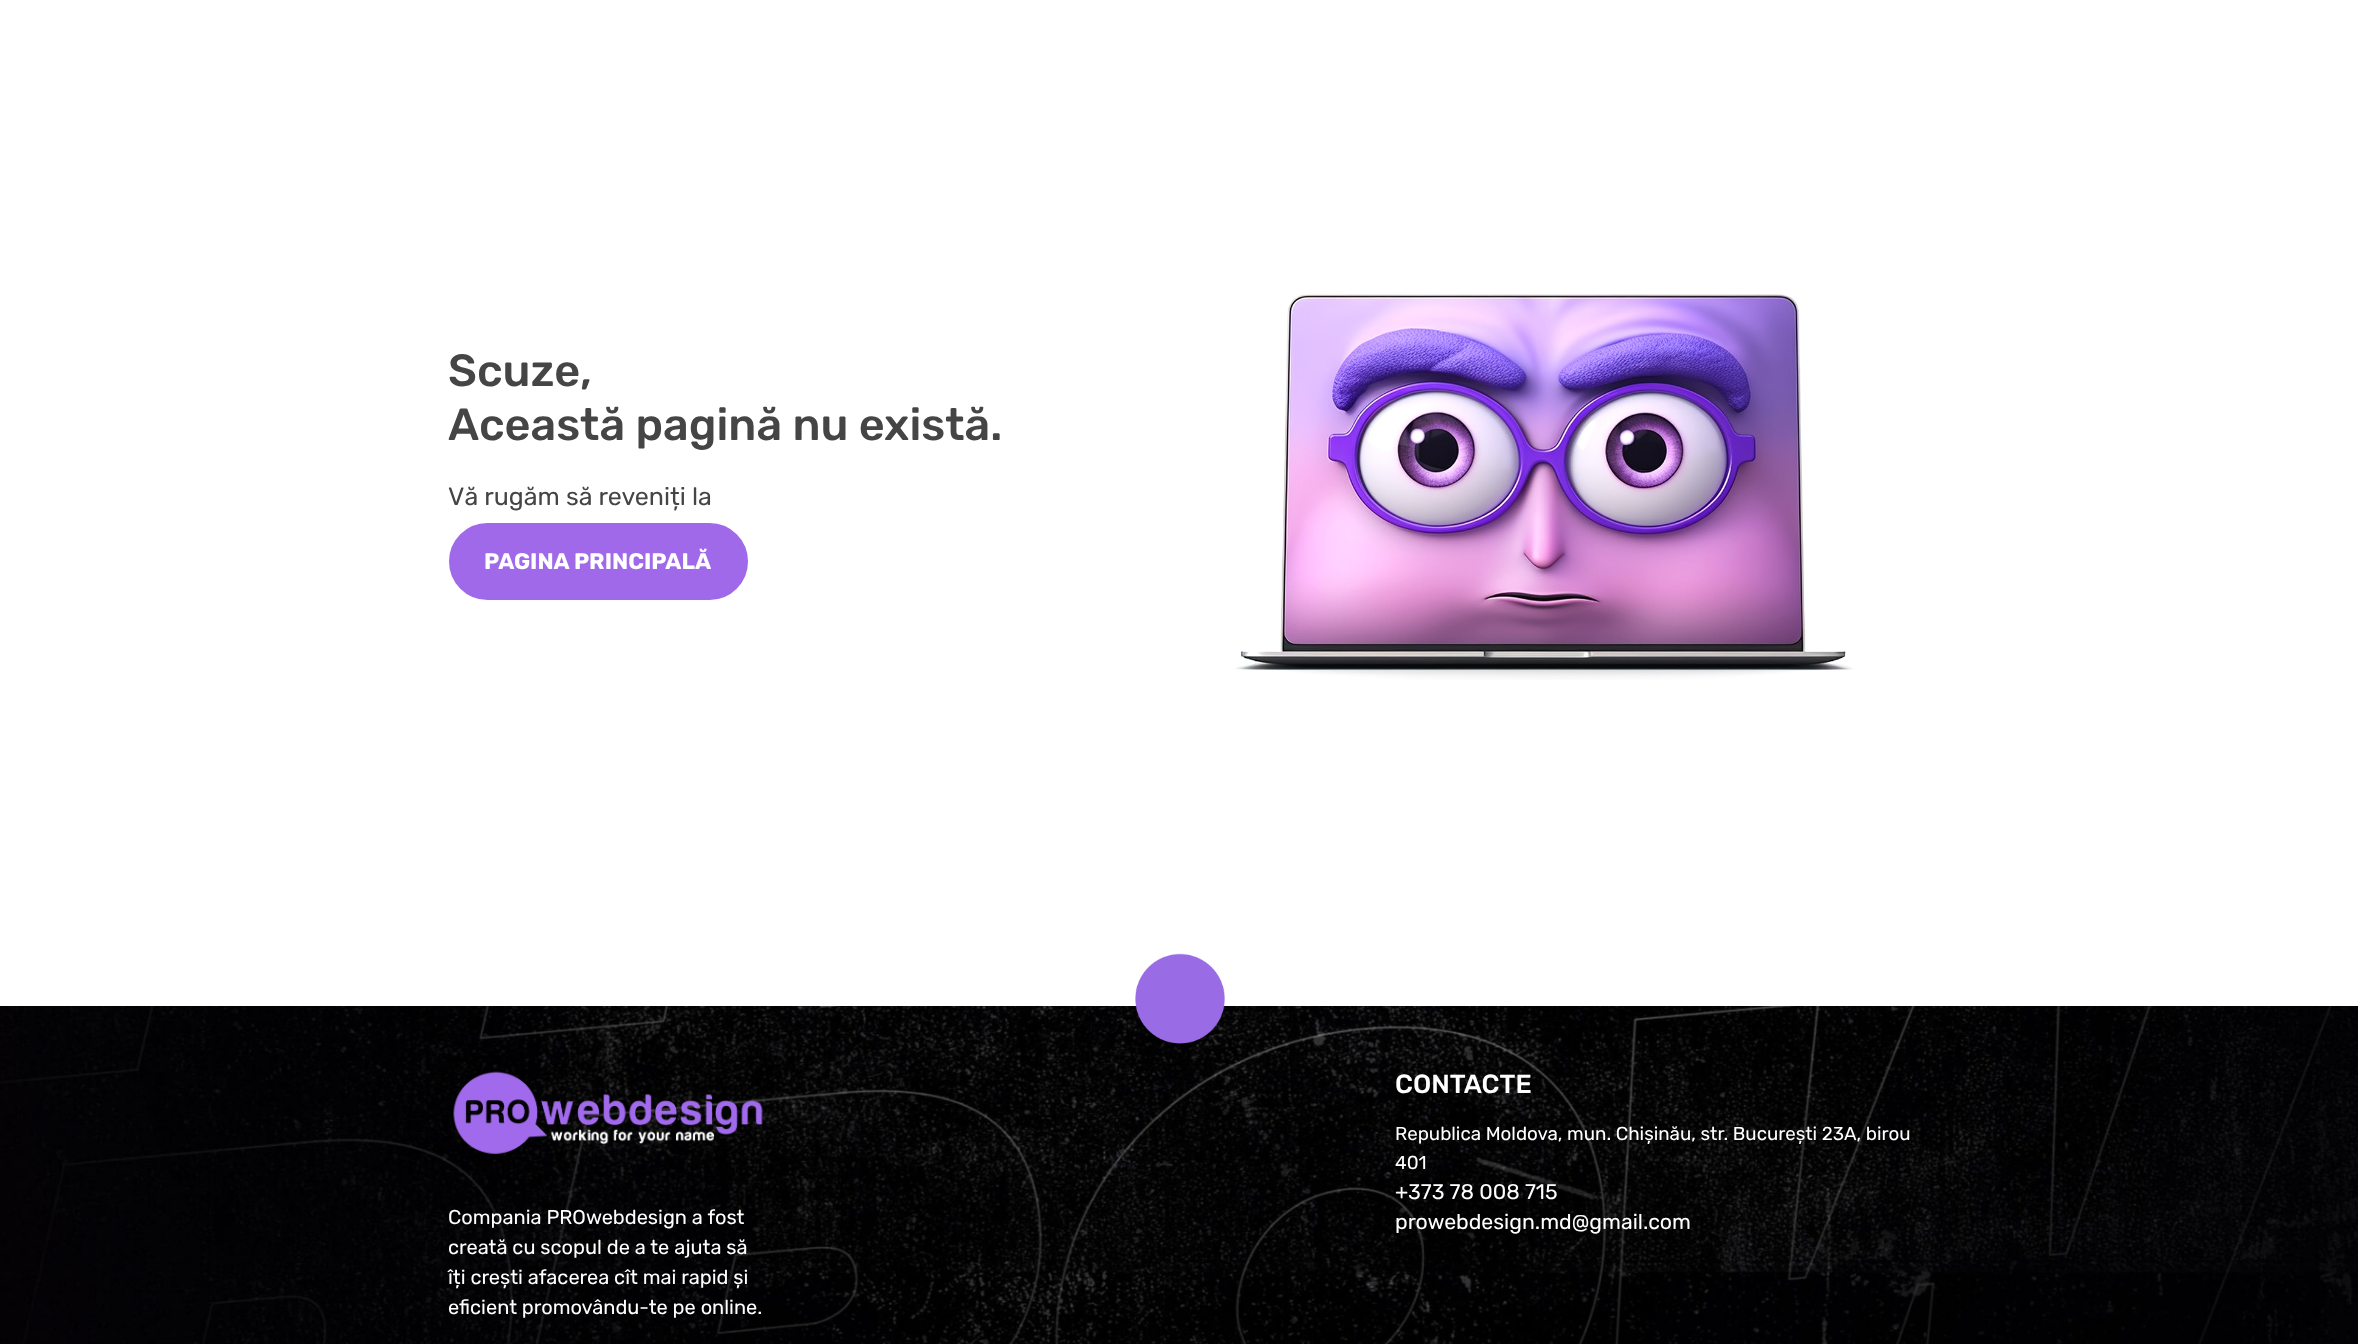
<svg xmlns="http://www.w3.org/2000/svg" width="2358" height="1344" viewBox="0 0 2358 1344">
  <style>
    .t1 { font: 500 45px Rubik; fill: #454545; }
    .t2 { font: 25px Rubik; fill: #454545; }
    .t3 { font: bold 22.5px Rubik; fill: #fff; }
    .t4 { font: 500 26.25px Rubik; fill: #fff; }
    .t5 { font: 18.75px Rubik; fill: #fff; }
    .t6 { font: 21.25px Rubik; fill: #fff; }
    .t7 { font: 20px Rubik; fill: #fff; }
  </style>
  <rect width="100%" height="100%" fill="#fff"/>
  <text x="448" y="386" class="t1">Scuze,</text>
  <text x="448" y="440" class="t1">Această pagină nu există.</text>
  <text x="448" y="505" class="t2">Vă rugăm să reveniți la</text>
  <rect x="451" y="525" width="295" height="73" rx="36.5" fill="#a069e9" stroke="#a069e9" stroke-width="4"/>
  <text x="484" y="569" class="t3">PAGINA PRINCIPALĂ</text>
  <image x="1235" y="294" width="618" height="386" href="images/1.png"/>
  <image x="0" y="1006" width="2358" height="338" href="images/3.png"/>
  <image x="1135" y="953" width="90" height="91" href="images/2.png"/>
  <text x="1395" y="1093" class="t4">CONTACTE</text>
  <text x="1395" y="1140" class="t5">Republica Moldova, mun. Chișinău, str. București 23A, birou</text>
  <text x="1395" y="1169" class="t5">401</text>
  <text x="1395" y="1199" class="t6">+373 78 008 715</text>
  <text x="1395" y="1229" class="t6">prowebdesign.md@gmail.com</text>
  <image x="453" y="1071" width="310" height="83" href="images/4.png"/>
  <text x="448" y="1224" class="t7">Compania PROwebdesign a fost</text>
  <text x="448" y="1254" class="t7">creată cu scopul de a te ajuta să</text>
  <text x="448" y="1284" class="t7">îți crești afacerea cît mai rapid și</text>
  <text x="448" y="1314" class="t7">eficient promovându-te pe online.</text>
</svg>
